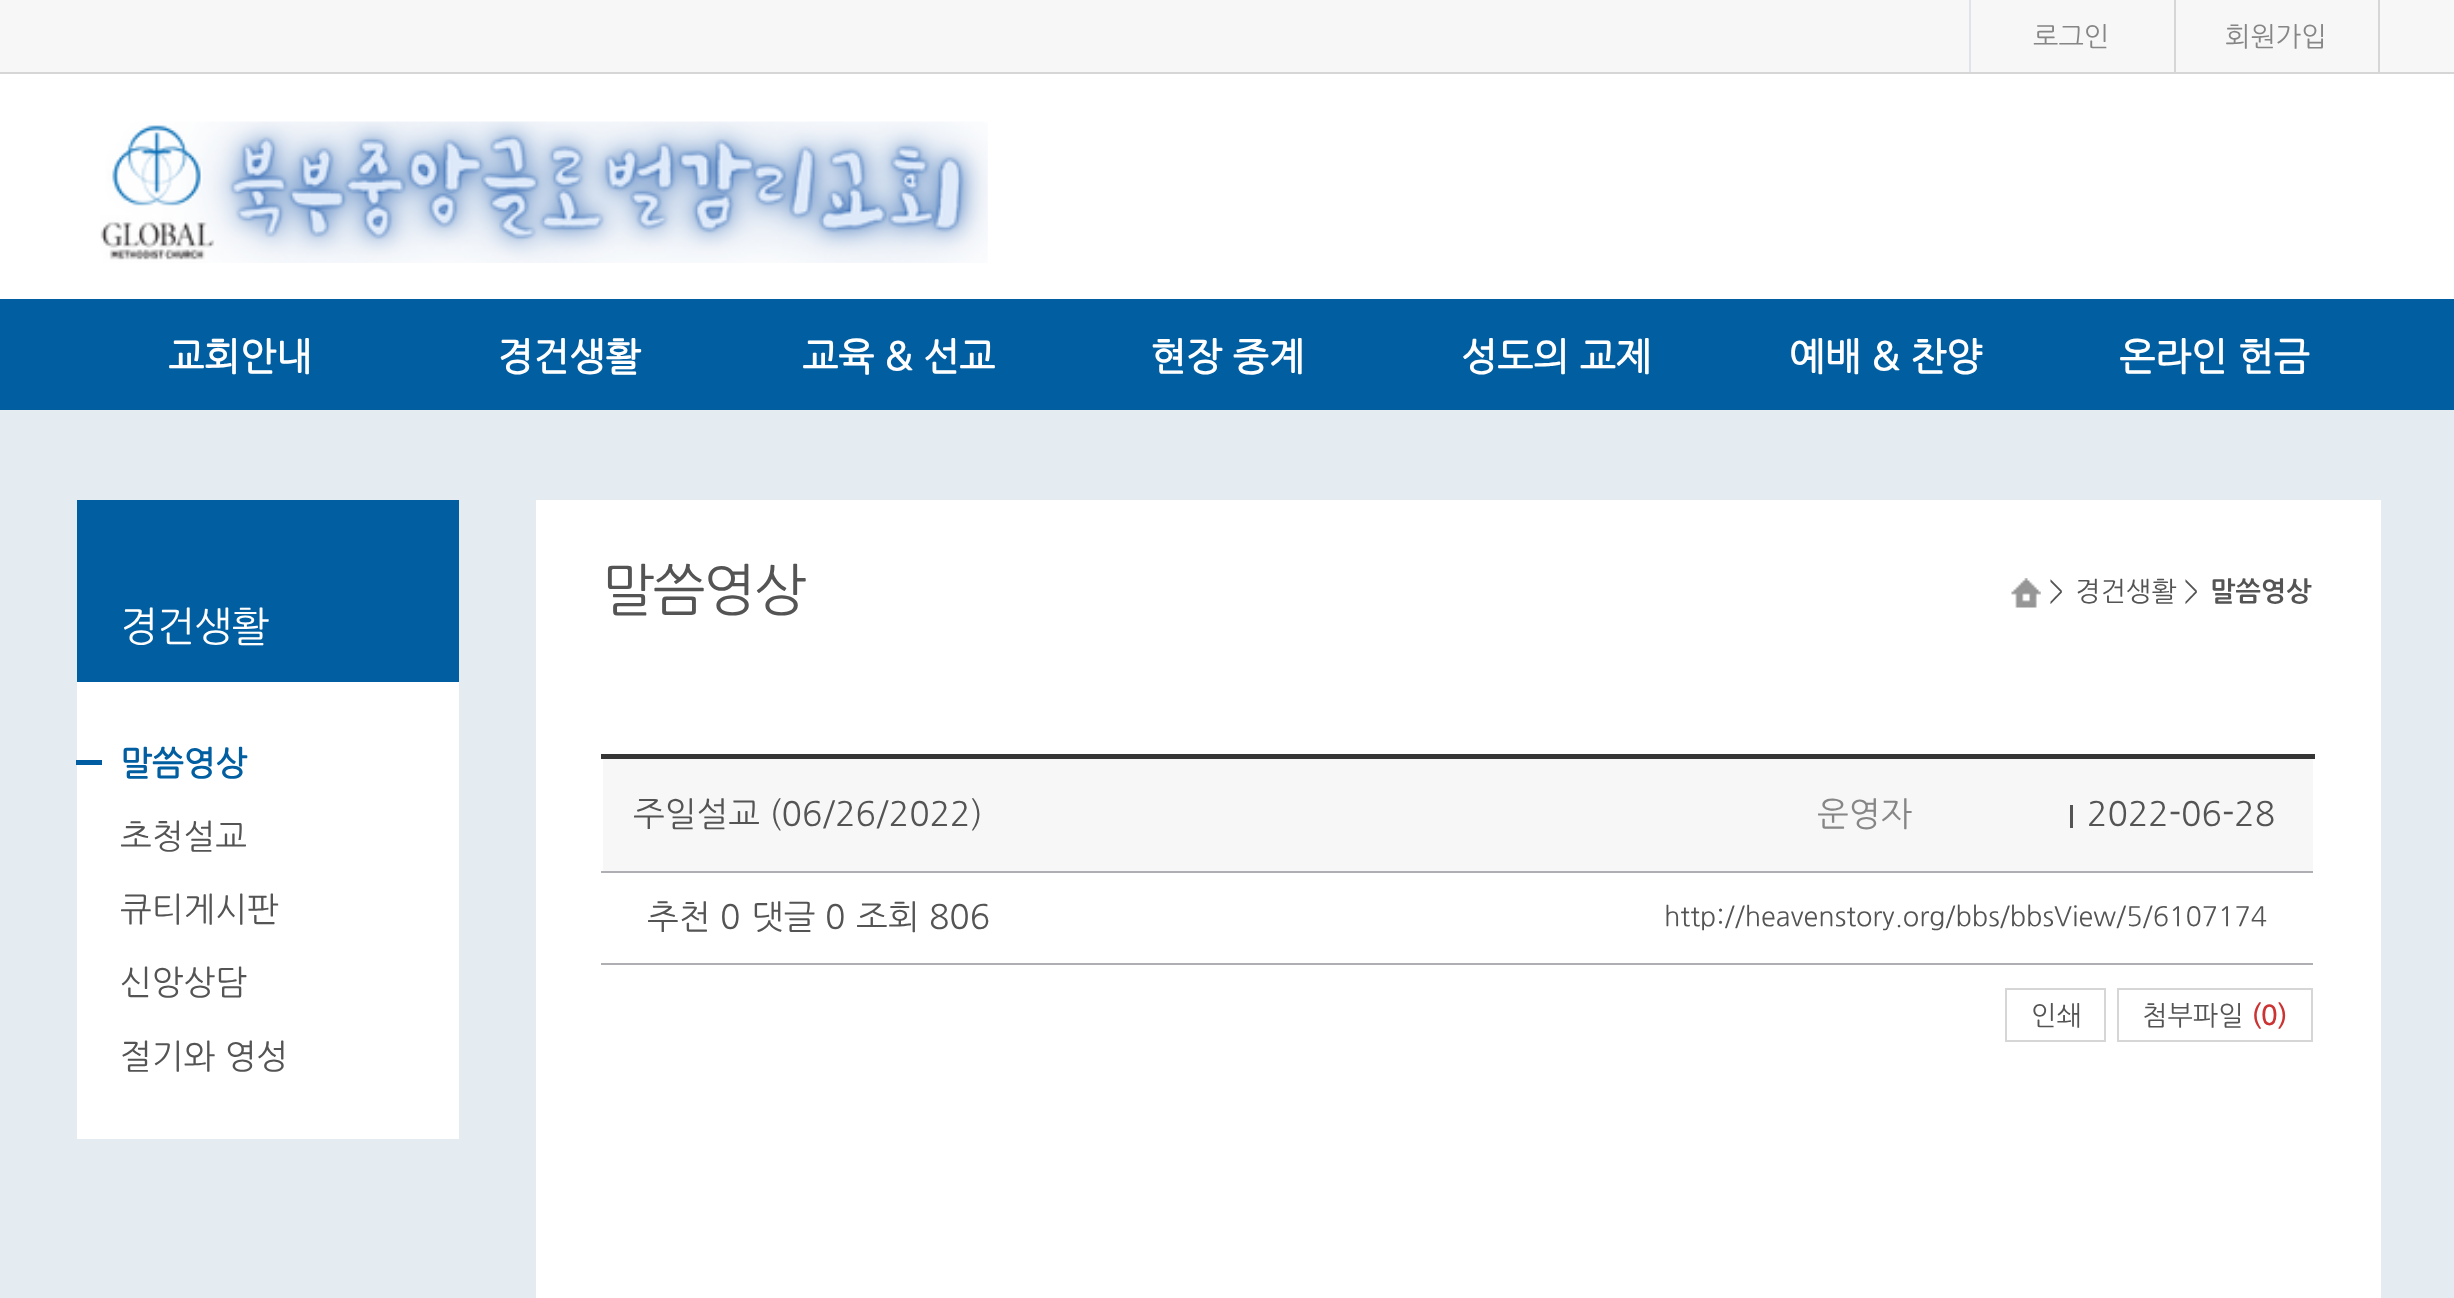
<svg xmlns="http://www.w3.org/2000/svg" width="2454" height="1298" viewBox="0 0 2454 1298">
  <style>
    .t1 { font: 27px 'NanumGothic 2'; fill: #868686; }
    .t2 { font: bold 38.25px NanumGothic; fill: #fff; }
    .t3 { font: 40.5px NanumGothic; letter-spacing: -1px; fill: #fff; }
    .t4 { font: bold 33.75px NanumGothic; fill: #015ea1; }
    .t5 { font: 33.75px 'NanumGothic 2'; fill: #545454; }
    .t6 { font: 56px NanumGothic; letter-spacing: -2px; fill: #545454; }
    .t7 { font: 27px NanumGothic; fill: #545454; }
    .t8 { font: bold 27px 'NanumGothic 2'; fill: #545454; }
    .t9 { font: 33.75px NanumGothic; fill: #545454; }
    .t10 { font: 33.75px NanumGothic; fill: #868686; }
    .t11 { font: 27px 'NanumGothic 2'; fill: #545454; }
    .t12 { font: bold 27px NanumGothic; fill: #c33; }
  </style>
  <rect width="100%" height="100%" fill="#fff"/>
  <path d="M0 405V410H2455V5V405Z" fill="#015ea1"/>
  <rect x="0" y="0" width="2454" height="72" fill="#f7f7f7"/>
  <rect x="0" y="72" width="2454" height="2" fill="#d6d6d6"/>
  <rect x="2174" y="0" width="2" height="72" fill="#d6d6d6"/>
  <rect x="1969" y="0" width="2" height="72" fill="#e1e3ea"/>
  <text x="2033" y="45" class="t1">로그인</text>
  <rect x="2378" y="0" width="2" height="72" fill="#d6d6d6"/>
  <text x="2225" y="45" class="t1">회원가입</text>
  <image x="100" y="121" width="888" height="142" href="images/1.png"/>
  <rect x="0" y="299" width="2454" height="106" fill="#015ea1"/>
  <text x="168" y="369" class="t2">교회안내</text>
  <text x="497" y="369" class="t2">경건생활</text>
  <text x="802" y="369" class="t2">교육 &amp; 선교</text>
  <text x="1150" y="369" class="t2">현장 중계</text>
  <text x="1461" y="369" class="t2">성도의 교제</text>
  <text x="1789" y="369" class="t2">예배 &amp; 찬양</text>
  <text x="2119" y="369" class="t2">온라인 헌금</text>
  <rect x="0" y="410" width="2454" height="888" fill="#e4ebf1"/>
  <rect x="77" y="682" width="382" height="457" fill="#fff"/>
  <rect x="77" y="500" width="382" height="182" fill="#015ea1"/>
  <text x="120" y="641" class="t3">경건생활</text>
  <rect x="76" y="760" width="26" height="5" fill="#005da1"/>
  <text x="120" y="774" class="t4">말씀영상</text>
  <text x="120" y="847" class="t5">초청설교</text>
  <text x="120" y="920" class="t5">큐티게시판</text>
  <text x="120" y="993" class="t5">신앙상담</text>
  <text x="120" y="1067" class="t5">절기와 영성</text>
  <rect x="536" y="500" width="1845" height="798" fill="#fff"/>
  <text x="602" y="610" class="t6">말씀영상</text>
  <image x="2011" y="578" width="30" height="30" href="images/2.png"/>
  <text x="2049" y="601" class="t7">&gt;</text>
  <text x="2075" y="601" class="t7">경건생활 &gt;</text>
  <text x="2210" y="601" class="t8">말씀영상</text>
  <rect x="603" y="759" width="1710" height="112" fill="#f7f7f7"/>
  <rect x="601" y="871" width="1712" height="2" fill="#afafb3"/>
  <rect x="601" y="754" width="1714" height="5" fill="#353535"/>
  <text x="633" y="826" class="t9">주일설교 (06/26/2022)</text>
  <rect x="2070" y="805" width="3" height="23" fill="#545454"/>
  <text x="1817" y="826" class="t10">운영자</text>
  <text x="2087" y="826" class="t9">2022-06-28</text>
  <rect x="601" y="963" width="1712" height="2" fill="#afafb3"/>
  <text x="647" y="929" class="t9">추천 0</text>
  <text x="752" y="929" class="t9">댓글 0</text>
  <text x="856" y="929" class="t9">조회 806</text>
  <text x="1664" y="925" class="t11">http://heavenstory.org/bbs/bbsView/5/6107174</text>
  <rect x="2006" y="989" width="99" height="52" fill="none" stroke="#d6d6d6" stroke-width="2"/>
  <text x="2031" y="1024" class="t11">인쇄</text>
  <rect x="2118" y="989" width="194" height="52" fill="none" stroke="#d6d6d6" stroke-width="2"/>
  <text x="2142" y="1024" class="t11">첨부파일</text>
  <text x="2251" y="1024" class="t12">(0)</text>
</svg>
